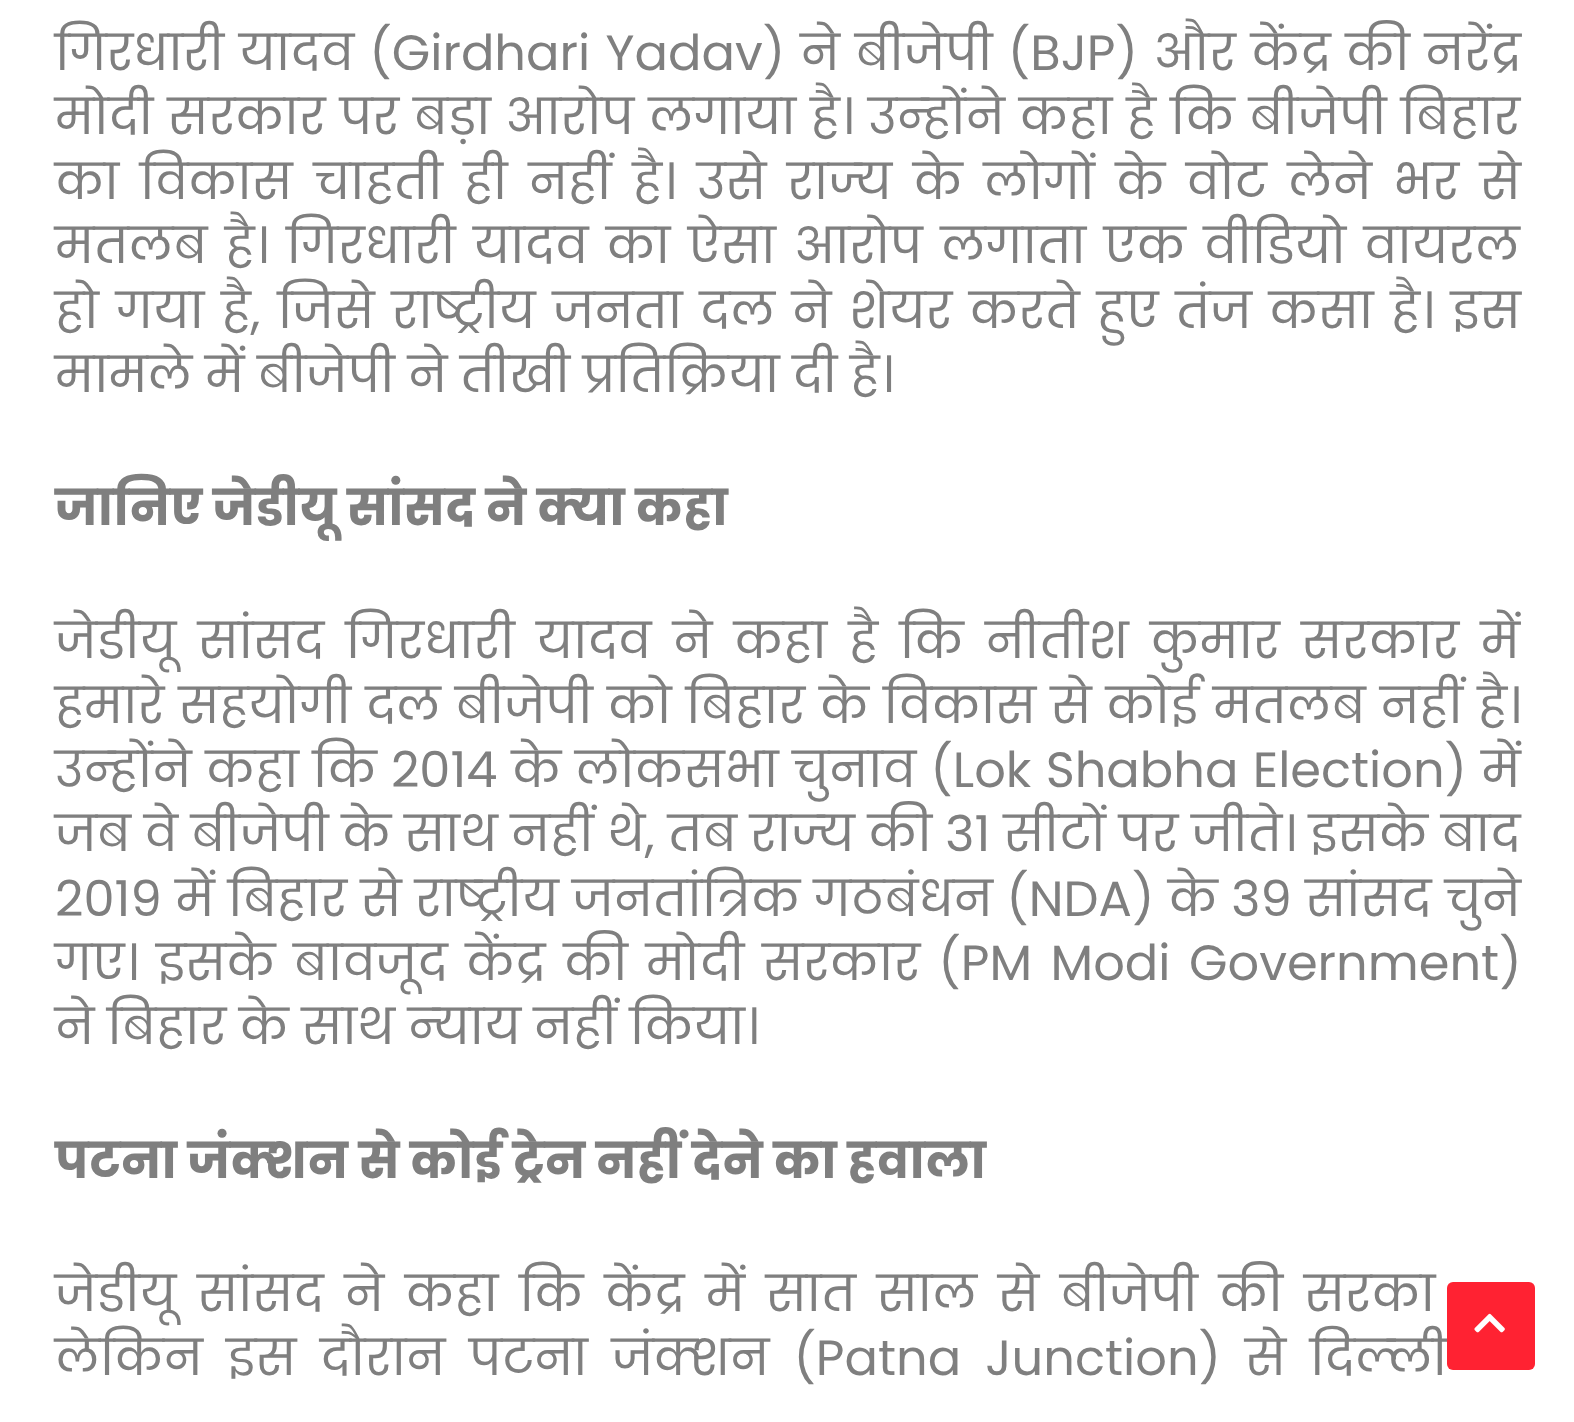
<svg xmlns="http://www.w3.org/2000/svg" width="1574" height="1422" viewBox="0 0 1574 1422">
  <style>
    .t1 { font: 49.5px Poppins; fill: #7f7f7f; }
    .t2 { font: bold 49.5px Poppins; fill: #7f7f7f; }
  </style>
  <rect width="100%" height="100%" fill="#fff"/>
  <text x="55" y="70" word-spacing="2.25" class="t1">गिरधारी यादव (Girdhari Yadav) ने बीजेपी (BJP) और केंद्र की नरेंद्र</text>
  <text x="55" y="134" word-spacing="1.5" class="t1">मोदी सरकार पर बड़ा आरोप लगाया है। उन्‍होंने कहा है कि बीजेपी बिहार</text>
  <text x="55" y="199" word-spacing="8.1" class="t1">का विकास चाहती ही नहीं है। उसे राज्‍य के लोगों के वोट लेने भर से</text>
  <text x="55" y="263" word-spacing="5" class="t1">मतलब है। गिरधारी यादव का ऐसा आरोप लगाता एक वीडियो वायरल</text>
  <text x="55" y="328" word-spacing="4.25" class="t1">हो गया है, जिसे राष्‍ट्रीय जनता दल ने शेयर करते हुए तंज कसा है। इस</text>
  <text x="55" y="392" class="t1">मामले में बीजेपी ने तीखी प्रतिक्रिया दी है।</text>
  <text x="55" y="525" class="t2">जानिए जेडीयू सांसद ने क्‍या कहा</text>
  <text x="55" y="658" word-spacing="8.75" class="t1">जेडीयू सांसद गिरधारी यादव ने कहा है कि नीतीश कुमार सरकार में</text>
  <text x="55" y="723" word-spacing="1.6" class="t1">हमारे सहयोगी दल बीजेपी को बिहार के विकास से कोई मतलब नहीं है।</text>
  <text x="55" y="787" word-spacing="1.1" class="t1">उन्‍होंने कहा कि 2014 के लोकसभा चुनाव (Lok Shabha Election) में</text>
  <text x="55" y="851" word-spacing="0.25" class="t1">जब वे बीजेपी के साथ नहीं थे, तब राज्‍य की 31 सीटों पर जीते। इसके बाद</text>
  <text x="55" y="916" word-spacing="0.6" class="t1">2019 में बिहार से राष्‍ट्रीय जनतांत्रिक गठबंधन (NDA) के 39 सांसद चुने</text>
  <text x="55" y="980" word-spacing="5.25" class="t1">गए। इसके बावजूद केंद्र की मोदी सरकार (PM Modi Government)</text>
  <text x="55" y="1044" class="t1">ने बिहार के साथ न्‍याय नहीं किया।</text>
  <text x="55" y="1178" class="t2">पटना जंक्‍शन से कोई ट्रेन नहीं देने का हवाला</text>
  <text x="55" y="1311" word-spacing="8.25" class="t1">जेडीयू सांसद ने कहा कि केंद्र में सात साल से बीजेपी की सरका</text>
  <text x="55" y="1375" word-spacing="11" class="t1">लेकिन इस दौरान पटना जंक्‍शन (Patna Junction) से दिल्‍ली</text>
  <rect x="1447" y="1282" width="88" height="88" rx="6" fill="#ff2232"/>
  <image x="1474" y="1313" width="31" height="20" href="images/1.png"/>
</svg>
